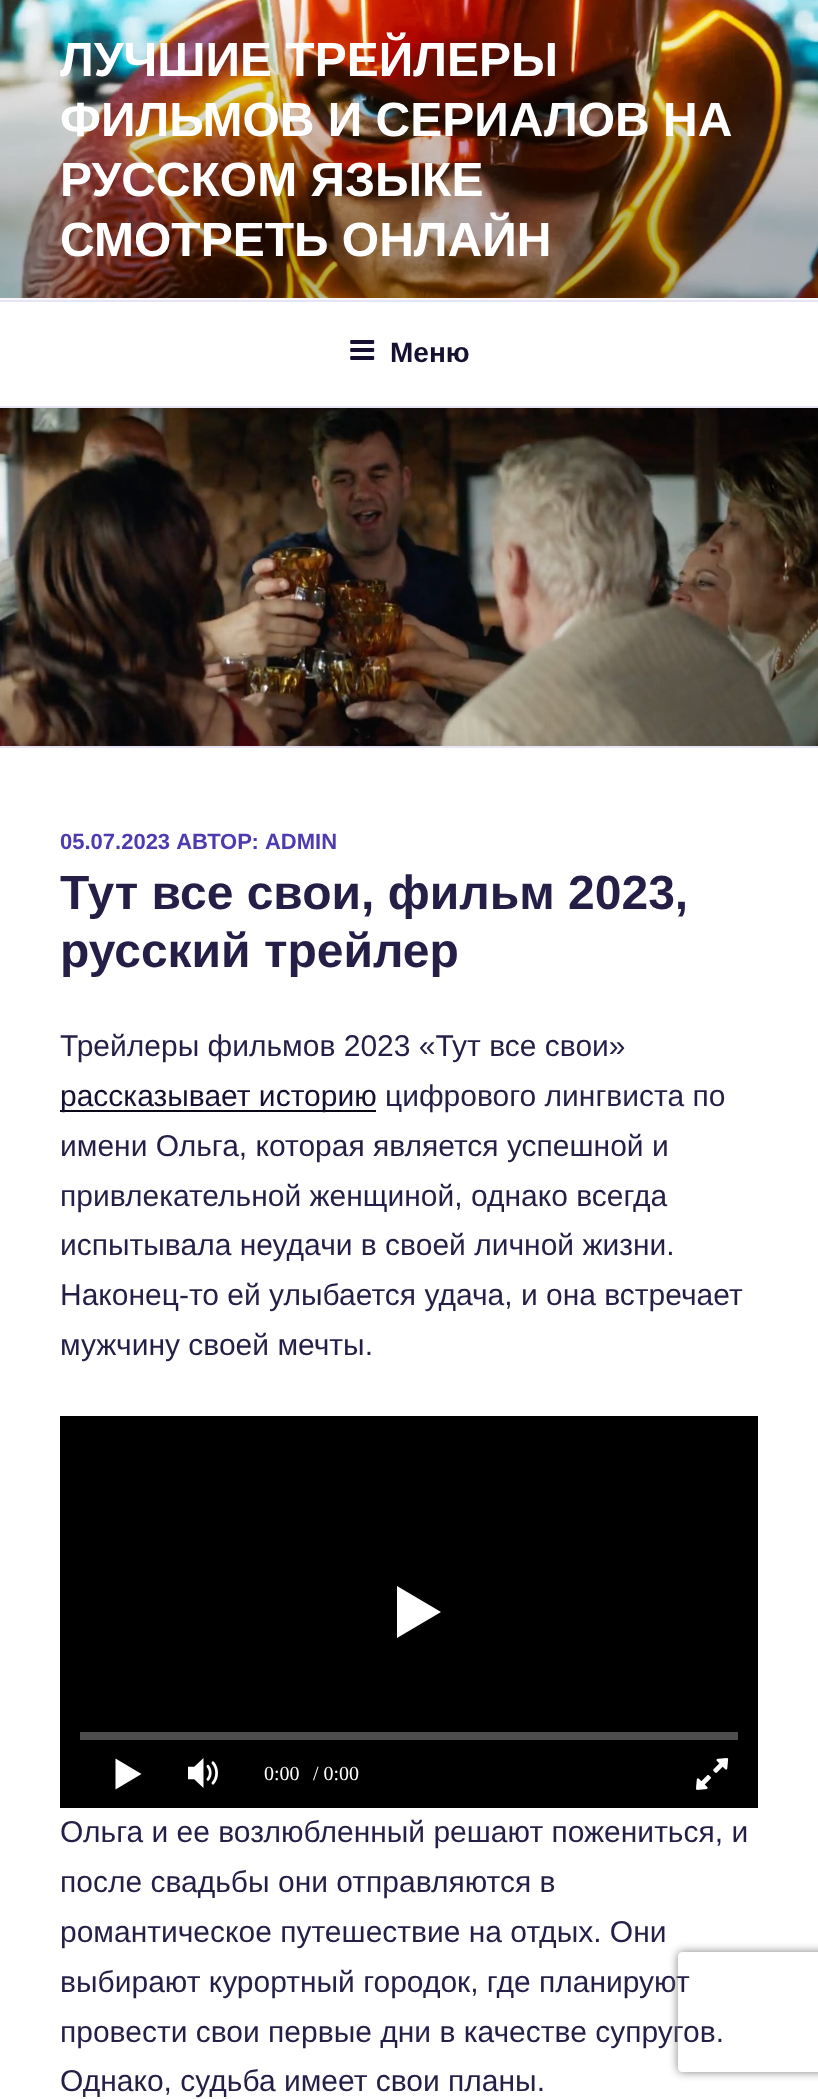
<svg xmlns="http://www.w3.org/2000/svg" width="818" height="2099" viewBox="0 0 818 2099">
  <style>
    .t1 { font: bold 48px Liberation Sans; fill: #fff; }
    .t2 { font: bold 28px Liberation Sans; fill: #161132; }
    .t3 { font: bold 22px Liberation Sans; fill: #4e3bb0; }
    .t4 { font: bold 48px Liberation Sans; fill: #251f47; }
    .t5 { font: 30px Liberation Sans; fill: #251f47; }
    .t6 { font: 30px Liberation Sans; fill: #161132; }
    .t7 { font: 20px Liberation Serif; fill: #fff; }
  </style>
  <defs>
    <clipPath id="clip1"><path d="M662 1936H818V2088H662ZM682 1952H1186C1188 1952 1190 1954 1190 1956V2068C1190 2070 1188 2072 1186 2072H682C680 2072 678 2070 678 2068V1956C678 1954 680 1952 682 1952Z" clip-rule="evenodd"/></clipPath>
  </defs>
  <rect width="100%" height="100%" fill="#fff"/>
  <rect x="0" y="298" width="818" height="2" fill="#f8f7fc"/>
  <image x="0" y="0" width="818" height="298" href="images/1.png"/>
  <text x="60" y="76" class="t1">ЛУЧШИЕ ТРЕЙЛЕРЫ</text>
  <text x="60" y="136" class="t1">ФИЛЬМОВ И СЕРИАЛОВ НА</text>
  <text x="60" y="196" class="t1">РУССКОМ ЯЗЫКЕ</text>
  <text x="60" y="256" class="t1">СМОТРЕТЬ ОНЛАЙН</text>
  <rect x="0" y="300" width="818" height="2" fill="#e7e4f6"/>
  <rect x="0" y="406" width="818" height="2" fill="#e7e4f6"/>
  <image x="350" y="340" width="25" height="20" href="images/2.png"/>
  <text x="390" y="362" class="t2">Меню</text>
  <rect x="0" y="746" width="818" height="2" fill="#e7e4f6"/>
  <image x="0" y="408" width="818" height="338" href="images/3.png"/>
  <text x="60" y="849" class="t3">05.07.2023 АВТОР: ADMIN</text>
  <text x="60" y="909" class="t4">Тут все свои, фильм 2023,</text>
  <text x="60" y="967" class="t4">русский трейлер</text>
  <text x="60" y="1056" class="t5">Трейлеры фильмов 2023 «Тут все свои»</text>
  <rect x="60" y="1110" width="316" height="2" fill="#0a0817"/>
  <text x="60" y="1106" class="t6">рассказывает историю</text>
  <text x="385" y="1106" class="t5">цифрового лингвиста по</text>
  <text x="60" y="1156" class="t5">имени Ольга, которая является успешной и</text>
  <text x="60" y="1206" class="t5">привлекательной женщиной, однако всегда</text>
  <text x="60" y="1255" class="t5">испытывала неудачи в своей личной жизни.</text>
  <text x="60" y="1305" class="t5">Наконец-то ей улыбается удача, и она встречает</text>
  <text x="60" y="1355" class="t5">мужчину своей мечты.</text>
  <rect x="60" y="1416" width="698" height="392" fill="#000"/>
  <path d="M397 1586V1638L441 1612L397 1586" fill="#fff"/>
  <rect x="80" y="1732" width="658" height="8" fill="#4d4d4d"/>
  <path d="M115.5 1758.5V1789.5L141.5 1774L115.5 1758.5" fill="#fff"/>
  <image x="188" y="1758" width="30" height="30" href="images/4.png"/>
  <text x="264" y="1780" class="t7">0:00</text>
  <text x="313" y="1780" class="t7">/ 0:00</text>
  <image x="696" y="1758" width="33" height="32" href="images/5.png"/>
  <text x="60" y="1842" class="t5">Ольга и ее возлюбленный решают пожениться, и</text>
  <text x="60" y="1892" class="t5">после свадьбы они отправляются в</text>
  <text x="60" y="1942" class="t5">романтическое путешествие на отдых. Они</text>
  <text x="60" y="1992" class="t5">выбирают курортный городок, где планируют</text>
  <text x="60" y="2042" class="t5">провести свои первые дни в качестве супругов.</text>
  <text x="60" y="2091" class="t5">Однако, судьба имеет свои планы.</text>
  <g clip-path="url(#clip1)">
    <rect x="678" y="1952" width="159" height="120" rx="4" fill="#808080" filter="blur(5px)"/>
  </g>
</svg>
